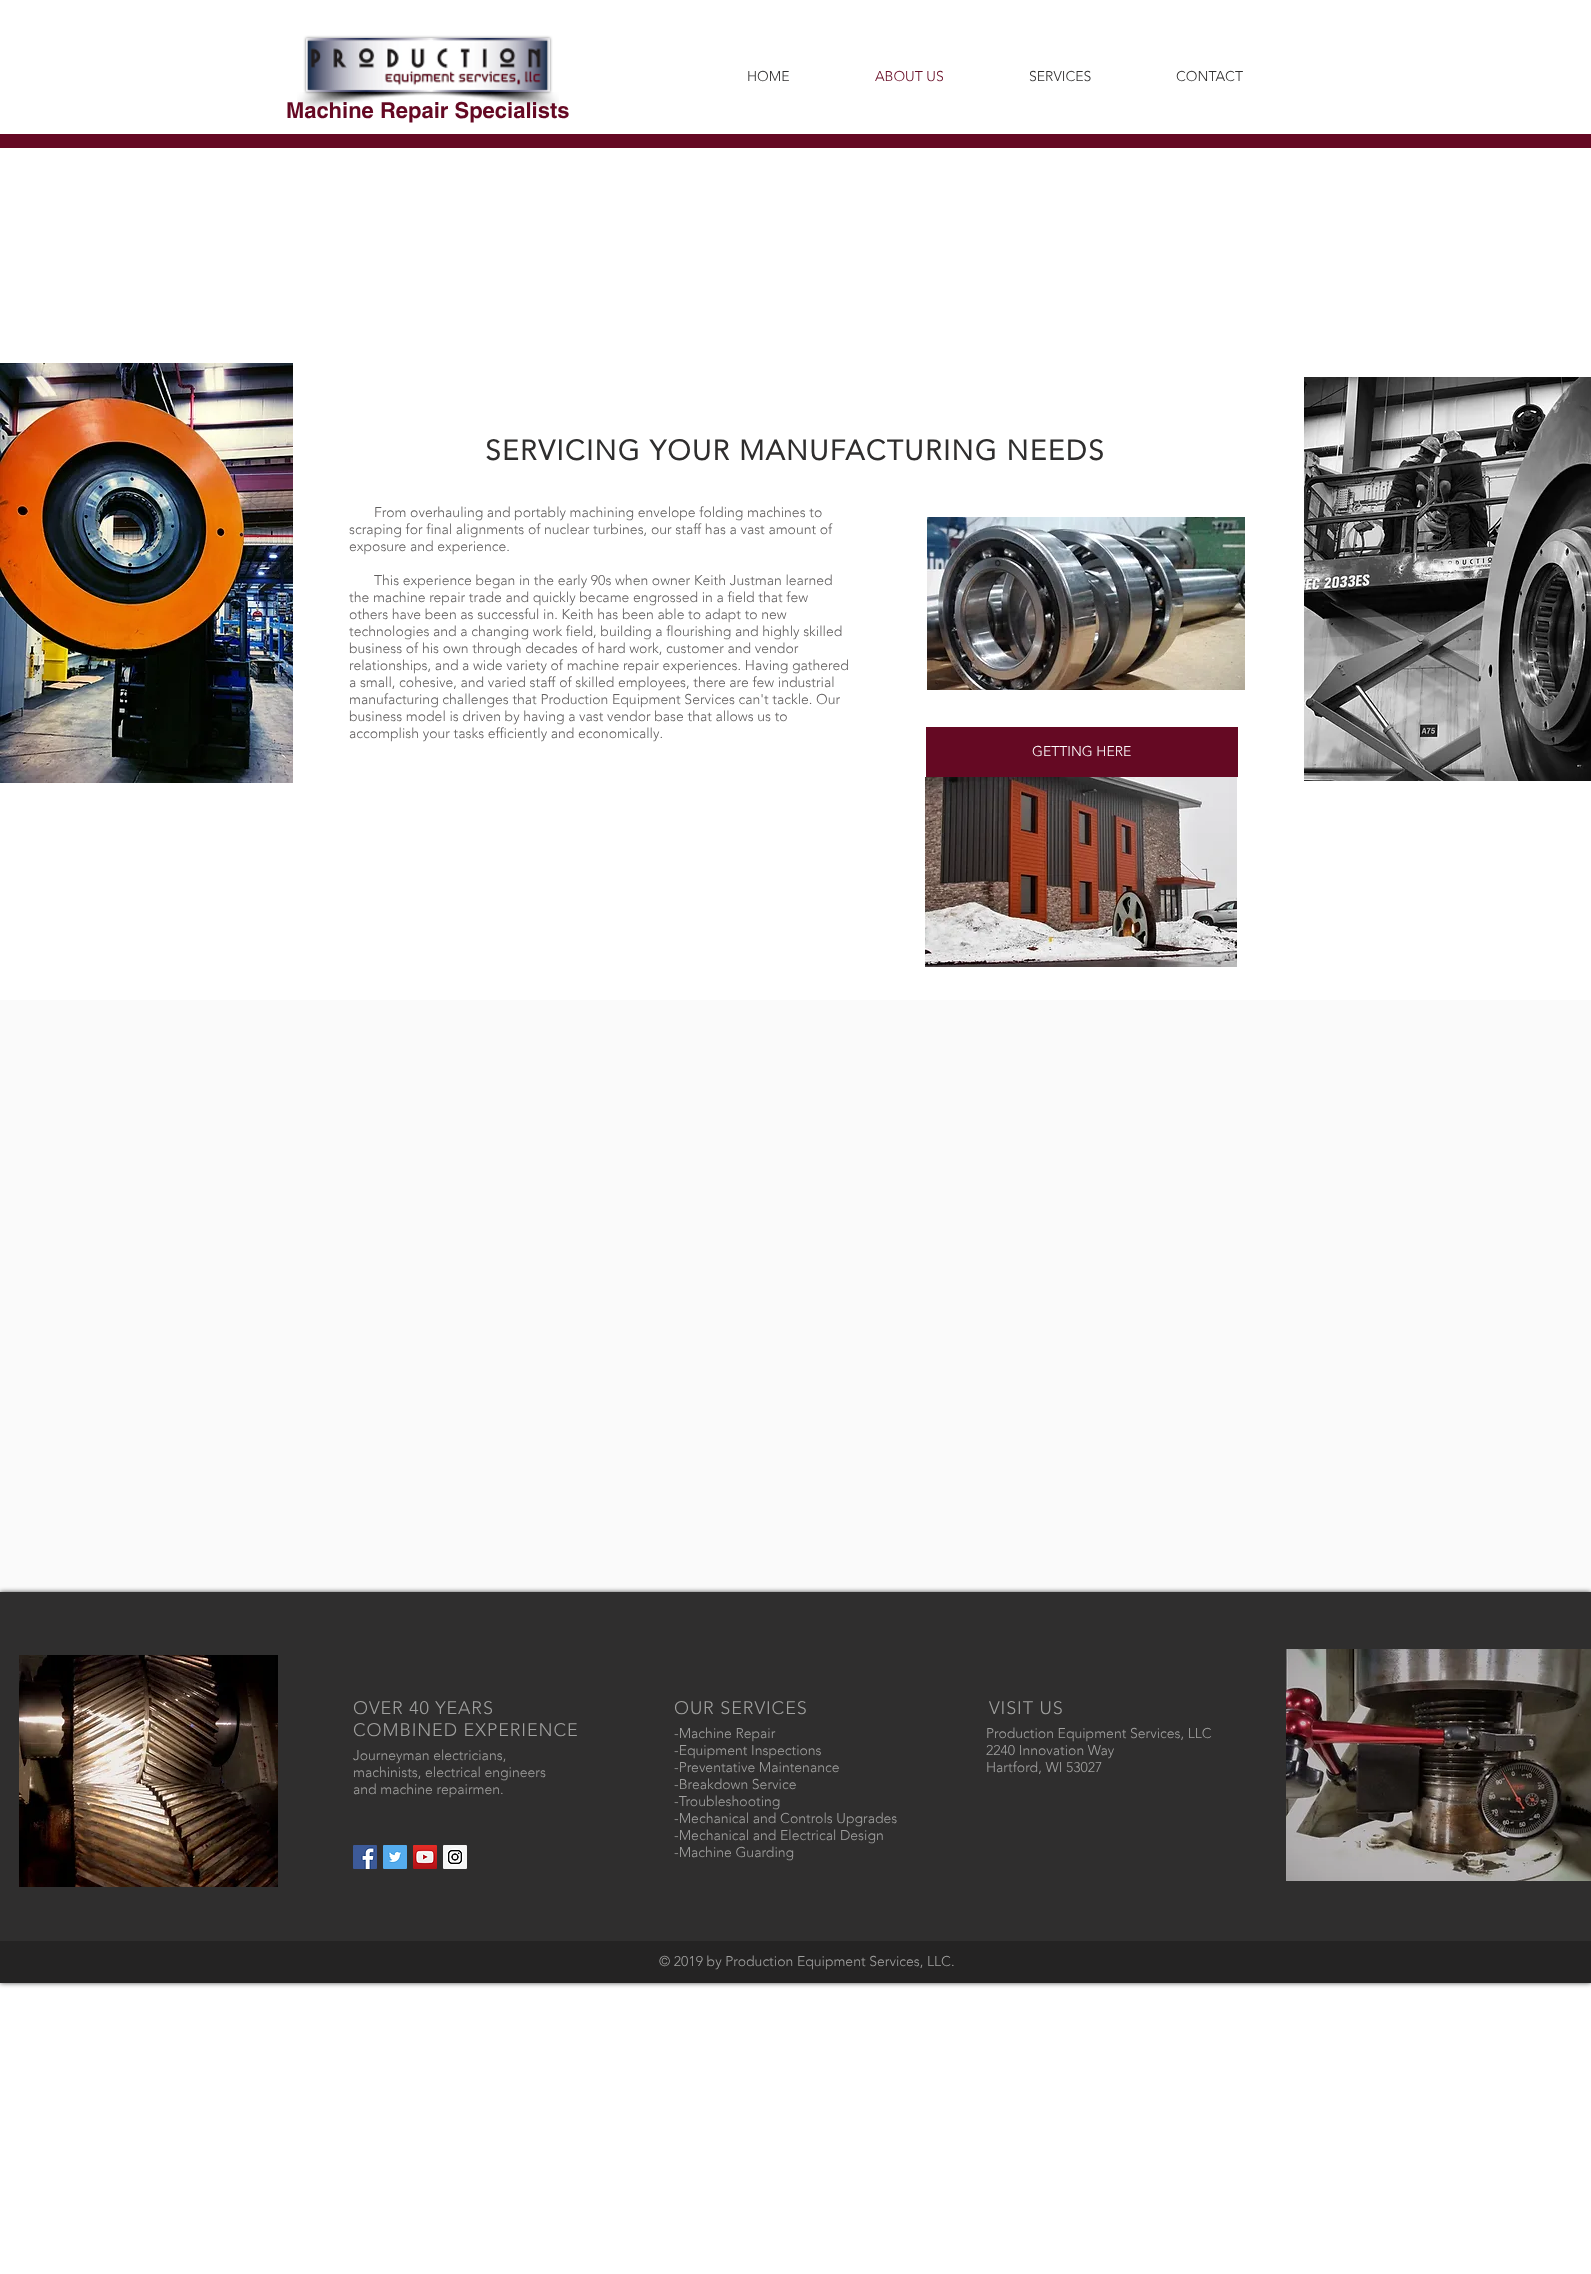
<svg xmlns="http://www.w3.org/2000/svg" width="1591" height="2274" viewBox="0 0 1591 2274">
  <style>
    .t1 { font: 300 14px 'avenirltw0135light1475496'; fill: #2f2e2e; }
    .t2 { font: 300 14px 'avenirltw0135light1475496'; fill: #650923; }
    .t3 { font: bold 22px helvetica; fill: #650923; }
    .t4 { font: bold 28px 'avenirltw0135light1475496'; letter-spacing: 1.4px; fill: #2f2e2e; }
    .t5 { font: 300 14px 'avenirltw0135light1475496'; fill: #605e5e; }
    .t6 { font: 300 14px 'avenirltw0135light1475496'; fill: #fff; }
    .t7 { font: 300 18px 'avenirltw0135light1475496'; letter-spacing: 0.9px; fill: #a0a09f; }
    .t8 { font: 300 14px 'avenirltw0135light1475496'; fill: #a0a09f; }
  </style>
  <rect width="100%" height="100%" fill="#fff"/>
  <rect x="306" y="38" width="244" height="54" fill="#00000080" filter="blur(1.5px)"/>
  <image x="306" y="38" width="244" height="54" href="images/1.png"/>
  <image x="297" y="92" width="154" height="18" href="images/2.png"/>
  <image x="412" y="92" width="147" height="18" href="images/3.png"/>
  <text x="747" y="81" class="t1">HOME</text>
  <text x="875" y="81" class="t2">ABOUT US</text>
  <text x="1029" y="81" class="t1">SERVICES</text>
  <text x="1176" y="81" class="t1">CONTACT</text>
  <text x="286" y="118" class="t3">Machine Repair Specialists</text>
  <rect x="0" y="134" width="1591" height="14" fill="#650923"/>
  <image x="0" y="363" width="293" height="420" href="images/4.png"/>
  <text x="485" y="460" class="t4">SERVICING YOUR MANUFACTURING NEEDS</text>
  <image x="1304" y="377" width="287" height="404" href="images/5.png"/>
  <text x="374" y="517" class="t5">From overhauling and portably machining envelope folding machines to</text>
  <text x="349" y="534" class="t5">scraping for final alignments of nuclear turbines, our staff has a vast amount of</text>
  <text x="349" y="551" class="t5">exposure and experience.</text>
  <text x="374" y="585" class="t5">This experience began in the early 90s when owner Keith Justman learned</text>
  <text x="349" y="602" class="t5">the machine repair trade and quickly became engrossed in a field that few</text>
  <text x="349" y="619" class="t5">others have been as successful in. Keith has been able to adapt to new</text>
  <text x="349" y="636" class="t5">technologies and a changing work field, building a flourishing and highly skilled</text>
  <text x="349" y="653" class="t5">business of his own through decades of hard work, customer and vendor</text>
  <text x="349" y="670" class="t5">relationships, and a wide variety of machine repair experiences. Having gathered</text>
  <text x="349" y="687" class="t5">a small, cohesive, and varied staff of skilled employees, there are few industrial</text>
  <text x="349" y="704" class="t5">manufacturing challenges that Production Equipment Services can't tackle. Our</text>
  <text x="349" y="721" class="t5">business model is driven by having a vast vendor base that allows us to</text>
  <text x="349" y="738" class="t5">accomplish your tasks efficiently and economically.</text>
  <image x="927" y="517" width="318" height="173" href="images/6.png"/>
  <rect x="926" y="727" width="312" height="50" fill="#650923"/>
  <text x="1032" y="756" class="t6">GETTING HERE</text>
  <image x="925" y="777" width="312" height="190" href="images/7.png"/>
  <rect x="0" y="1000" width="1591" height="592" fill="#fafafa"/>
  <rect x="0" y="1592" width="1591" height="391" fill="#000000b3" filter="blur(2.5px)"/>
  <rect x="0" y="1592" width="1591" height="349" fill="#2f2e2e"/>
  <image x="19" y="1655" width="259" height="232" href="images/8.png"/>
  <text x="353" y="1714" class="t7">OVER 40 YEARS</text>
  <text x="353" y="1736" class="t7">COMBINED EXPERIENCE</text>
  <text x="674" y="1714" class="t7">OUR SERVICES</text>
  <text x="989" y="1714" class="t7">VISIT US</text>
  <image x="1286" y="1649" width="305" height="232" href="images/9.png"/>
  <text x="353" y="1760" class="t8">Journeyman electricians,</text>
  <text x="353" y="1777" class="t8">machinists, electrical engineers</text>
  <text x="353" y="1794" class="t8">and machine repairmen.</text>
  <text x="674" y="1738" class="t8">-Machine Repair</text>
  <text x="674" y="1755" class="t8">-Equipment Inspections</text>
  <text x="674" y="1772" class="t8">-Preventative Maintenance</text>
  <text x="674" y="1789" class="t8">-Breakdown Service</text>
  <text x="674" y="1806" class="t8">-Troubleshooting</text>
  <text x="674" y="1823" class="t8">-Mechanical and Controls Upgrades</text>
  <text x="674" y="1840" class="t8">-Mechanical and Electrical Design</text>
  <text x="674" y="1857" class="t8">-Machine Guarding</text>
  <text x="986" y="1738" class="t8">Production Equipment Services, LLC</text>
  <text x="986" y="1755" class="t8">2240 Innovation Way</text>
  <text x="986" y="1772" class="t8">Hartford, WI 53027</text>
  <image x="353" y="1845" width="24" height="24" href="images/10.png"/>
  <image x="383" y="1845" width="24" height="24" href="images/11.png"/>
  <image x="413" y="1845" width="24" height="24" href="images/12.png"/>
  <image x="443" y="1845" width="24" height="24" href="images/13.png"/>
  <rect x="0" y="1941" width="1591" height="42" fill="#242323"/>
  <text x="659" y="1966" class="t8">© 2019 by Production Equipment Services, LLC.</text>
</svg>
